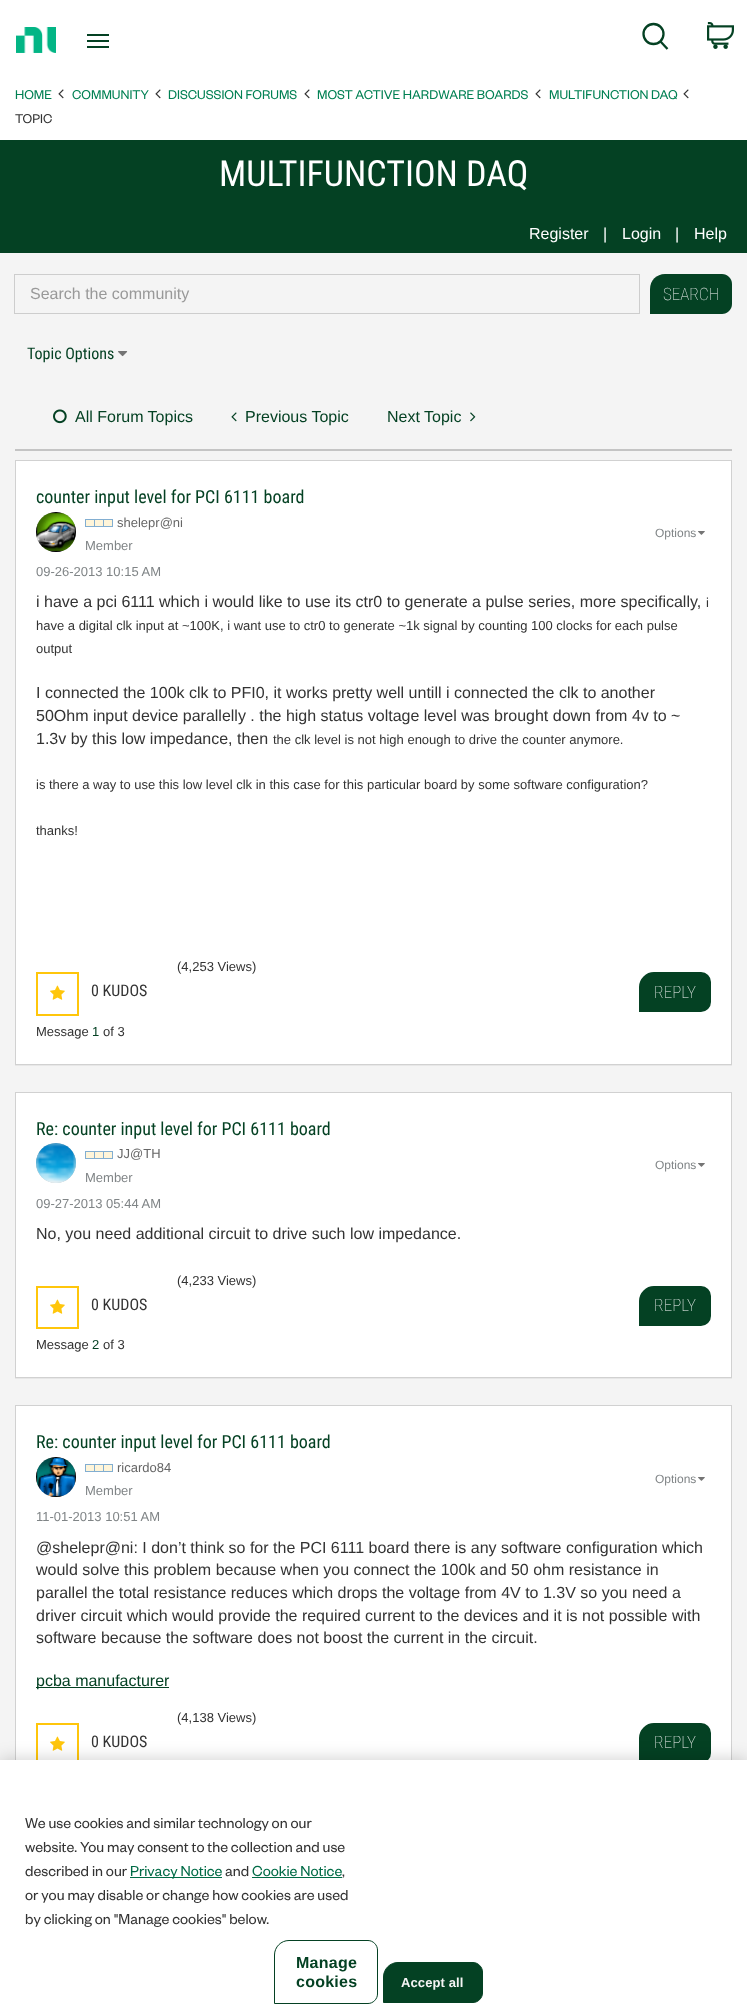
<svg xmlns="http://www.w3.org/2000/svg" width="747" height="2014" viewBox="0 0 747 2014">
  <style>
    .t1 { font: 14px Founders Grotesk; fill: #008053; }
    .t2 { font: 14px Founders Grotesk; fill: #333; }
    .t3 { font: 36px Roboto Condensed; fill: #fff; }
    .t4 { font: 16px Liberation Sans; fill: #fff; }
    .t5 { font: 16px Liberation Sans; fill: #999; }
    .t6 { font: 100 17px Roboto Condensed; fill: #f4f4f4; }
    .t7 { font: 16px Roboto Condensed; fill: #044123; }
    .t8 { font: 16px Liberation Sans; fill: #044123; }
    .t9 { font: 18px Roboto Condensed; fill: #044123; }
    .t10 { font: 13px Liberation Sans; fill: #666; }
    .t11 { font: 13px Liberation Sans; fill: #808587; }
    .t12 { font: 12px Liberation Sans; fill: #808587; }
    .t13 { font: 16px Liberation Sans; fill: #333; }
    .t14 { font: 13px Liberation Sans; fill: #333; }
    .t15 { font: 16px Roboto Condensed; fill: #333; }
    .t16 { font: 13px Liberation Sans; fill: #044123; }
    .t17 { font: 16px Founders Grotesk; fill: #333; }
    .t18 { font: 16px Founders Grotesk; fill: #006b46; }
    .t19 { font: bold 16px Liberation Sans; letter-spacing: 0.25px; fill: #044123; }
    .t20 { font: bold 13px Liberation Sans; letter-spacing: 0.1px; fill: #f4f4f4; }
  </style>
  <rect width="100%" height="100%" fill="#f4f4f4"/>
  <rect x="0" y="0" width="747" height="140" fill="#fff"/>
  <image x="16" y="27" width="40" height="26" href="images/1.png"/>
  <rect x="87" y="34" width="22" height="2" fill="#044123"/>
  <rect x="87" y="40" width="22" height="2" fill="#044123"/>
  <rect x="87" y="46" width="22" height="2" fill="#044123"/>
  <circle cx="653.5" cy="34" r="10" fill="none" stroke="#044123" stroke-width="2.3"/>
  <path d="M660.5 41.5L667.5 49" fill="none" stroke="#044123" stroke-width="2.3"/>
  <image x="707" y="22" width="27" height="27" href="images/2.png"/>
  <text x="15" y="99" class="t1">HOME</text>
  <image x="58" y="89" width="6" height="10" href="images/3.png"/>
  <text x="72" y="99" class="t1">COMMUNITY</text>
  <image x="155" y="89" width="6" height="10" href="images/3.png"/>
  <text x="168" y="99" class="t1">DISCUSSION FORUMS</text>
  <image x="304" y="89" width="6" height="10" href="images/3.png"/>
  <text x="317" y="99" class="t1">MOST ACTIVE HARDWARE BOARDS</text>
  <image x="535" y="89" width="6" height="10" href="images/3.png"/>
  <text x="549" y="99" class="t1">MULTIFUNCTION DAQ</text>
  <image x="683" y="89" width="6" height="10" href="images/3.png"/>
  <text x="15" y="123" class="t2">TOPIC</text>
  <rect x="0" y="140" width="747" height="113" fill="#044123"/>
  <text x="219" y="186" class="t3">MULTIFUNCTION DAQ</text>
  <text x="529" y="239" class="t4">Register</text>
  <text x="603" y="239" class="t4">|</text>
  <text x="622" y="239" class="t4">Login</text>
  <text x="675" y="239" class="t4">|</text>
  <text x="694" y="239" class="t4">Help</text>
  <rect x="14.5" y="274.5" width="625" height="39" fill="none" stroke="#cdcdcd"/>
  <text x="30" y="299" class="t5">Search the community</text>
  <path d="M665 274H722C727.5 274 732 278.5 732 284V304C732 309.5 727.5 314 722 314H650V289C650 280.5 656.5 274 665 274Z" fill="#044123"/>
  <text x="663" y="300" class="t6">SEARCH</text>
  <text x="27" y="359" class="t7">Topic Options</text>
  <image x="118" y="351" width="10" height="6" href="images/4.png"/>
  <image x="53" y="409" width="14" height="15" href="images/5.png"/>
  <text x="75" y="422" class="t8">All Forum Topics</text>
  <image x="231" y="412" width="6" height="10" href="images/6.png"/>
  <text x="245" y="422" class="t8">Previous Topic</text>
  <text x="387" y="422" class="t8">Next Topic</text>
  <image x="470" y="412" width="6" height="10" href="images/7.png"/>
  <rect x="15" y="449" width="717" height="2" fill="#c4c4c4"/>
  <rect x="15" y="461" width="717" height="605" fill="#0000000d" filter="blur(0.5px)"/>
  <rect x="15.5" y="460.5" width="716" height="604" fill="#fff" stroke="#d1d1d1"/>
  <text x="36" y="503" class="t9">counter input level for PCI 6111 board</text>
  <rect x="36" y="512" width="40" height="40" rx="20" fill="#c4c4c4" filter="blur(0.5px)"/>
  <image x="36" y="512" width="40" height="40" href="images/8.png"/>
  <image x="85" y="519" width="28" height="8" href="images/9.png"/>
  <text x="117" y="527" class="t10">shelepr@ni</text>
  <text x="85" y="550" class="t11">Member</text>
  <text x="655" y="537" class="t12">Options</text>
  <image x="698" y="531" width="7" height="4" href="images/10.png"/>
  <text x="36" y="576" class="t11">09-26-2013 10:15 AM</text>
  <text x="36" y="607" class="t13">i have a pci 6111 which i would like to use its ctr0 to generate a pulse series, more specifically,</text>
  <text x="706" y="607" class="t14">i</text>
  <text x="36" y="630" class="t14">have a digital clk input at ~100K, i want use to ctr0 to generate ~1k signal by counting 100 clocks for each pulse</text>
  <text x="36" y="653" class="t14">output</text>
  <text x="36" y="698" class="t13">I connected the 100k clk to PFI0, it works pretty well untill i connected the clk to another</text>
  <text x="36" y="721" class="t13">50Ohm input device parallelly . the high status voltage level was brought down from 4v to ~</text>
  <text x="36" y="744" class="t13">1.3v by this low impedance, then</text>
  <text x="273" y="744" class="t14">the clk level is not high enough to drive the counter anymore.</text>
  <text x="36" y="789" class="t14">is there a way to use this low level clk in this case for this particular board by some software configuration?</text>
  <text x="36" y="835" class="t14">thanks!</text>
  <text x="177" y="971" class="t14">(4,253 Views)</text>
  <rect x="37" y="973" width="41" height="42" fill="none" stroke="#ffc60b" stroke-width="2"/>
  <image x="50" y="985" width="15" height="15" href="images/11.png"/>
  <text x="91" y="996" class="t15">0 KUDOS</text>
  <text x="36" y="1036" class="t14">Message</text>
  <text x="92" y="1036" class="t16">1</text>
  <text x="103" y="1036" class="t14">of 3</text>
  <path d="M654 973H701C706 973 710 977 710 982V1002C710 1007 706 1011 701 1011H640V987C640 979.5 646.5 973 654 973Z" fill="#044123" stroke="#044123" stroke-width="2"/>
  <text x="654" y="998" class="t6">REPLY</text>
  <rect x="15" y="1093" width="717" height="286" fill="#0000000d" filter="blur(0.5px)"/>
  <rect x="15.5" y="1092.5" width="716" height="285" fill="#fff" stroke="#d1d1d1"/>
  <text x="36" y="1135" class="t9">Re: counter input level for PCI 6111 board</text>
  <rect x="36" y="1143" width="40" height="40" rx="20" fill="#c4c4c4" filter="blur(0.5px)"/>
  <image x="36" y="1143" width="40" height="40" href="images/12.png"/>
  <image x="85" y="1151" width="28" height="8" href="images/9.png"/>
  <text x="117" y="1158" class="t10">JJ@TH</text>
  <text x="85" y="1182" class="t11">Member</text>
  <text x="655" y="1169" class="t12">Options</text>
  <image x="698" y="1163" width="7" height="4" href="images/10.png"/>
  <text x="36" y="1208" class="t11">09-27-2013 05:44 AM</text>
  <text x="36" y="1239" class="t13">No, you need additional circuit to drive such low impedance.</text>
  <text x="177" y="1285" class="t14">(4,233 Views)</text>
  <rect x="37" y="1287" width="41" height="41" fill="none" stroke="#ffc60b" stroke-width="2"/>
  <image x="50" y="1299" width="15" height="15" href="images/11.png"/>
  <text x="91" y="1310" class="t15">0 KUDOS</text>
  <text x="36" y="1349" class="t14">Message</text>
  <text x="92" y="1349" class="t16">2</text>
  <text x="103" y="1349" class="t14">of 3</text>
  <path d="M654 1287H701C706 1287 710 1291 710 1296V1316C710 1321 706 1325 701 1325H640V1301C640 1293.5 646.5 1287 654 1287Z" fill="#044123" stroke="#044123" stroke-width="2"/>
  <text x="654" y="1311" class="t6">REPLY</text>
  <rect x="16" y="1406" width="715" height="354" fill="#fff"/>
  <rect x="15.5" y="1405.5" width="716" height="409" fill="none" stroke="#d1d1d1"/>
  <text x="36" y="1448" class="t9">Re: counter input level for PCI 6111 board</text>
  <rect x="36" y="1457" width="40" height="40" rx="20" fill="#c4c4c4" filter="blur(0.5px)"/>
  <image x="36" y="1457" width="40" height="40" href="images/13.png"/>
  <image x="85" y="1464" width="28" height="8" href="images/9.png"/>
  <text x="117" y="1472" class="t10">ricardo84</text>
  <text x="85" y="1495" class="t11">Member</text>
  <text x="655" y="1483" class="t12">Options</text>
  <image x="698" y="1477" width="7" height="4" href="images/10.png"/>
  <text x="36" y="1521" class="t11">11-01-2013 10:51 AM</text>
  <text x="36" y="1553" class="t13">@shelepr@ni: I don’t think so for the PCI 6111 board there is any software configuration which</text>
  <text x="36" y="1575" class="t13">would solve this problem because when you connect the 100k and 50 ohm resistance in</text>
  <text x="36" y="1598" class="t13">parallel the total resistance reduces which drops the voltage from 4V to 1.3V so you need a</text>
  <text x="36" y="1621" class="t13">driver circuit which would provide the required current to the devices and it is not possible with</text>
  <text x="36" y="1643" class="t13">software because the software does not boost the current in the circuit.</text>
  <rect x="36" y="1687" width="133" height="1" fill="#044123"/>
  <text x="36" y="1686" class="t8">pcba manufacturer</text>
  <text x="177" y="1722" class="t14">(4,138 Views)</text>
  <rect x="37" y="1724" width="41" height="41" fill="none" stroke="#ffc60b" stroke-width="2"/>
  <image x="50" y="1736" width="15" height="15" href="images/11.png"/>
  <text x="91" y="1747" class="t15">0 KUDOS</text>
  <path d="M654 1724H701C706 1724 710 1728 710 1733V1753C710 1758 706 1762 701 1762H640V1738C640 1730.5 646.5 1724 654 1724Z" fill="#044123" stroke="#044123" stroke-width="2"/>
  <text x="654" y="1748" class="t6">REPLY</text>
  <rect x="0" y="1760" width="747" height="254" fill="#00000033" filter="blur(9px)"/>
  <rect x="0" y="1760" width="747" height="254" fill="#fff"/>
  <text x="25" y="1828" class="t17">We use cookies and similar technology on our</text>
  <text x="25" y="1852" class="t17">website. You may consent to the collection and use</text>
  <text x="25" y="1876" class="t17">described in our</text>
  <rect x="130" y="1877" width="92" height="1" fill="#006b46"/>
  <text x="130" y="1876" class="t18">Privacy Notice</text>
  <text x="225" y="1876" class="t17">and</text>
  <text x="252" y="1876" class="t18">Cookie Notice</text>
  <rect x="252" y="1877" width="90" height="1" fill="#006b46"/>
  <text x="342" y="1876" class="t17">,</text>
  <text x="25" y="1900" class="t17">or you may disable or change how cookies are used</text>
  <text x="25" y="1924" class="t17">by clicking on "Manage cookies" below.</text>
  <path d="M289 1940.5H368C373 1940.5 377.5 1945 377.5 1950V1994C377.5 1999 373 2003.5 368 2003.5H274.5V1955C274.5 1947 281 1940.5 289 1940.5Z" fill="none" stroke="#044123"/>
  <text x="296" y="1968" class="t19">Manage</text>
  <text x="296" y="1987" class="t19">cookies</text>
  <path d="M398 1962.5H473C478 1962.5 482.5 1967 482.5 1972V1993C482.5 1998 478 2002.5 473 2002.5H383.5V1977C383.5 1969 390 1962.5 398 1962.5Z" fill="#044123" stroke="#044123"/>
  <text x="401" y="1987" class="t20">Accept all</text>
</svg>
